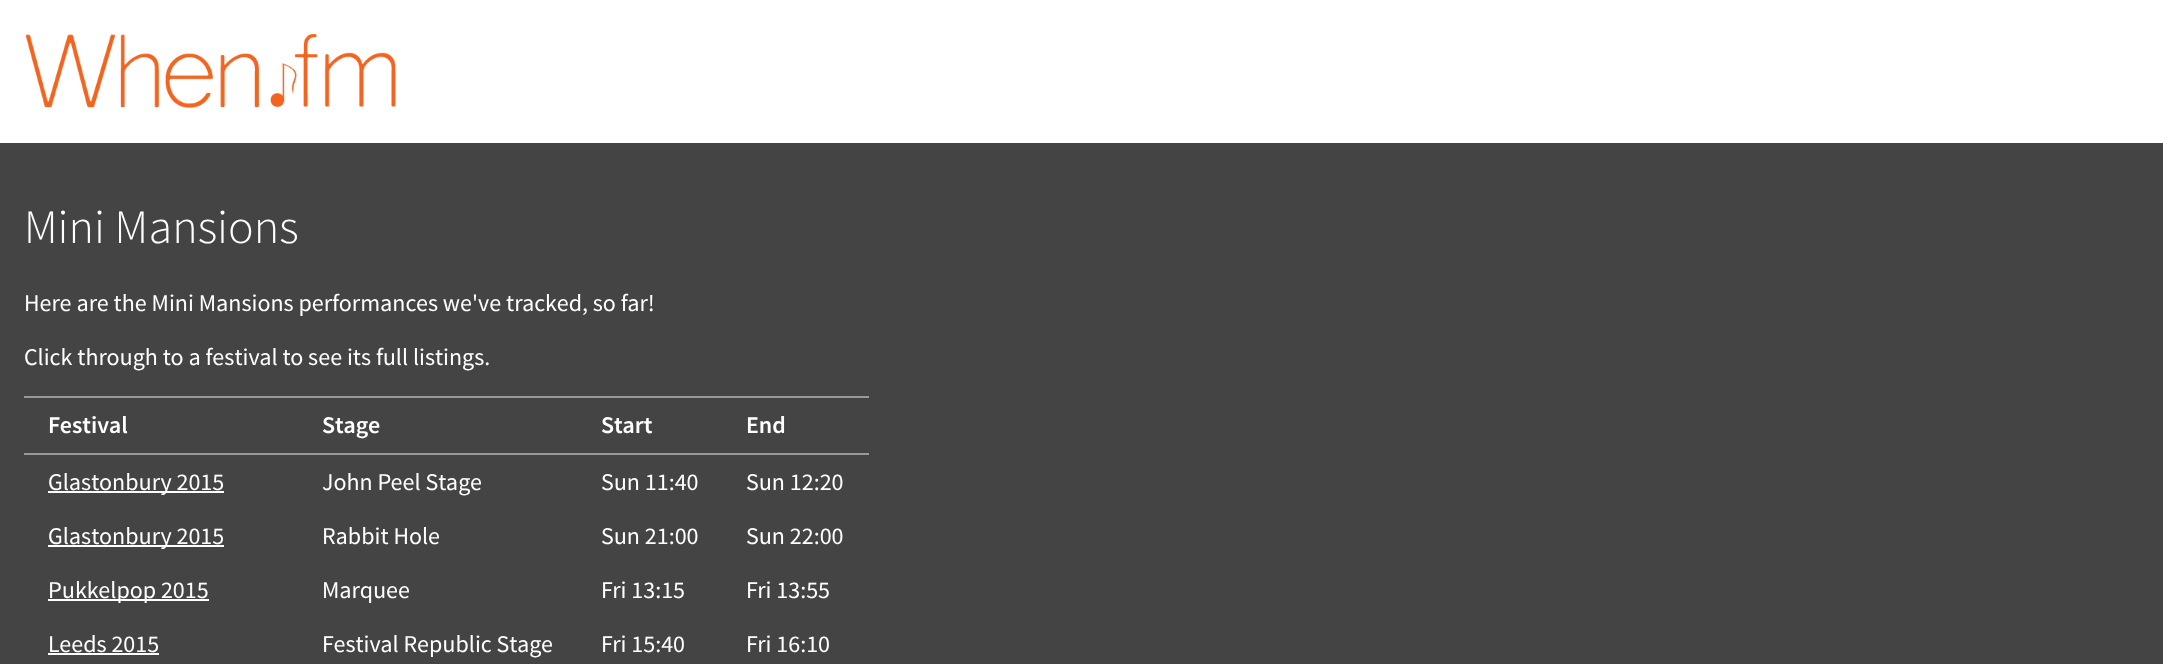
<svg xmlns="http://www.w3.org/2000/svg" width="2163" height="664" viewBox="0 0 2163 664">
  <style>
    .t1 { font: 300 48px Source Sans Pro; fill: #fff; }
    .t2 { font: 24px Source Sans Pro; fill: #fff; }
    .t3 { font: 600 24px Source Sans Pro; fill: #fff; }
  </style>
  <rect width="100%" height="100%" fill="#444"/>
  <rect x="0" y="0" width="2163" height="143" fill="#fff"/>
  <image x="25" y="34" width="371" height="74" href="images/1.png"/>
  <text x="24" y="243" class="t1">Mini Mansions</text>
  <text x="24" y="311" class="t2">Here are the Mini Mansions performances we've tracked, so far!</text>
  <text x="24" y="365" class="t2">Click through to a festival to see its full listings.</text>
  <text x="48" y="433" class="t3">Festival</text>
  <text x="322" y="433" class="t3">Stage</text>
  <text x="601" y="433" class="t3">Start</text>
  <rect x="24" y="396" width="845" height="2" fill="#999"/>
  <rect x="24" y="453" width="845" height="2" fill="#999"/>
  <text x="746" y="433" class="t3">End</text>
  <rect x="48" y="491" width="176" height="2" fill="#fff"/>
  <text x="48" y="490" class="t2">Glastonbury 2015</text>
  <text x="322" y="490" class="t2">John Peel Stage</text>
  <text x="601" y="490" class="t2">Sun 11:40</text>
  <text x="746" y="490" class="t2">Sun 12:20</text>
  <rect x="48" y="545" width="176" height="2" fill="#fff"/>
  <text x="48" y="544" class="t2">Glastonbury 2015</text>
  <text x="322" y="544" class="t2">Rabbit Hole</text>
  <text x="601" y="544" class="t2">Sun 21:00</text>
  <text x="746" y="544" class="t2">Sun 22:00</text>
  <rect x="48" y="599" width="161" height="2" fill="#fff"/>
  <text x="48" y="598" class="t2">Pukkelpop 2015</text>
  <text x="322" y="598" class="t2">Marquee</text>
  <text x="601" y="598" class="t2">Fri 13:15</text>
  <text x="746" y="598" class="t2">Fri 13:55</text>
  <text x="48" y="652" class="t2">Leeds 2015</text>
  <rect x="48" y="653" width="111" height="2" fill="#fff"/>
  <text x="322" y="652" class="t2">Festival Republic Stage</text>
  <text x="601" y="652" class="t2">Fri 15:40</text>
  <text x="746" y="652" class="t2">Fri 16:10</text>
</svg>
